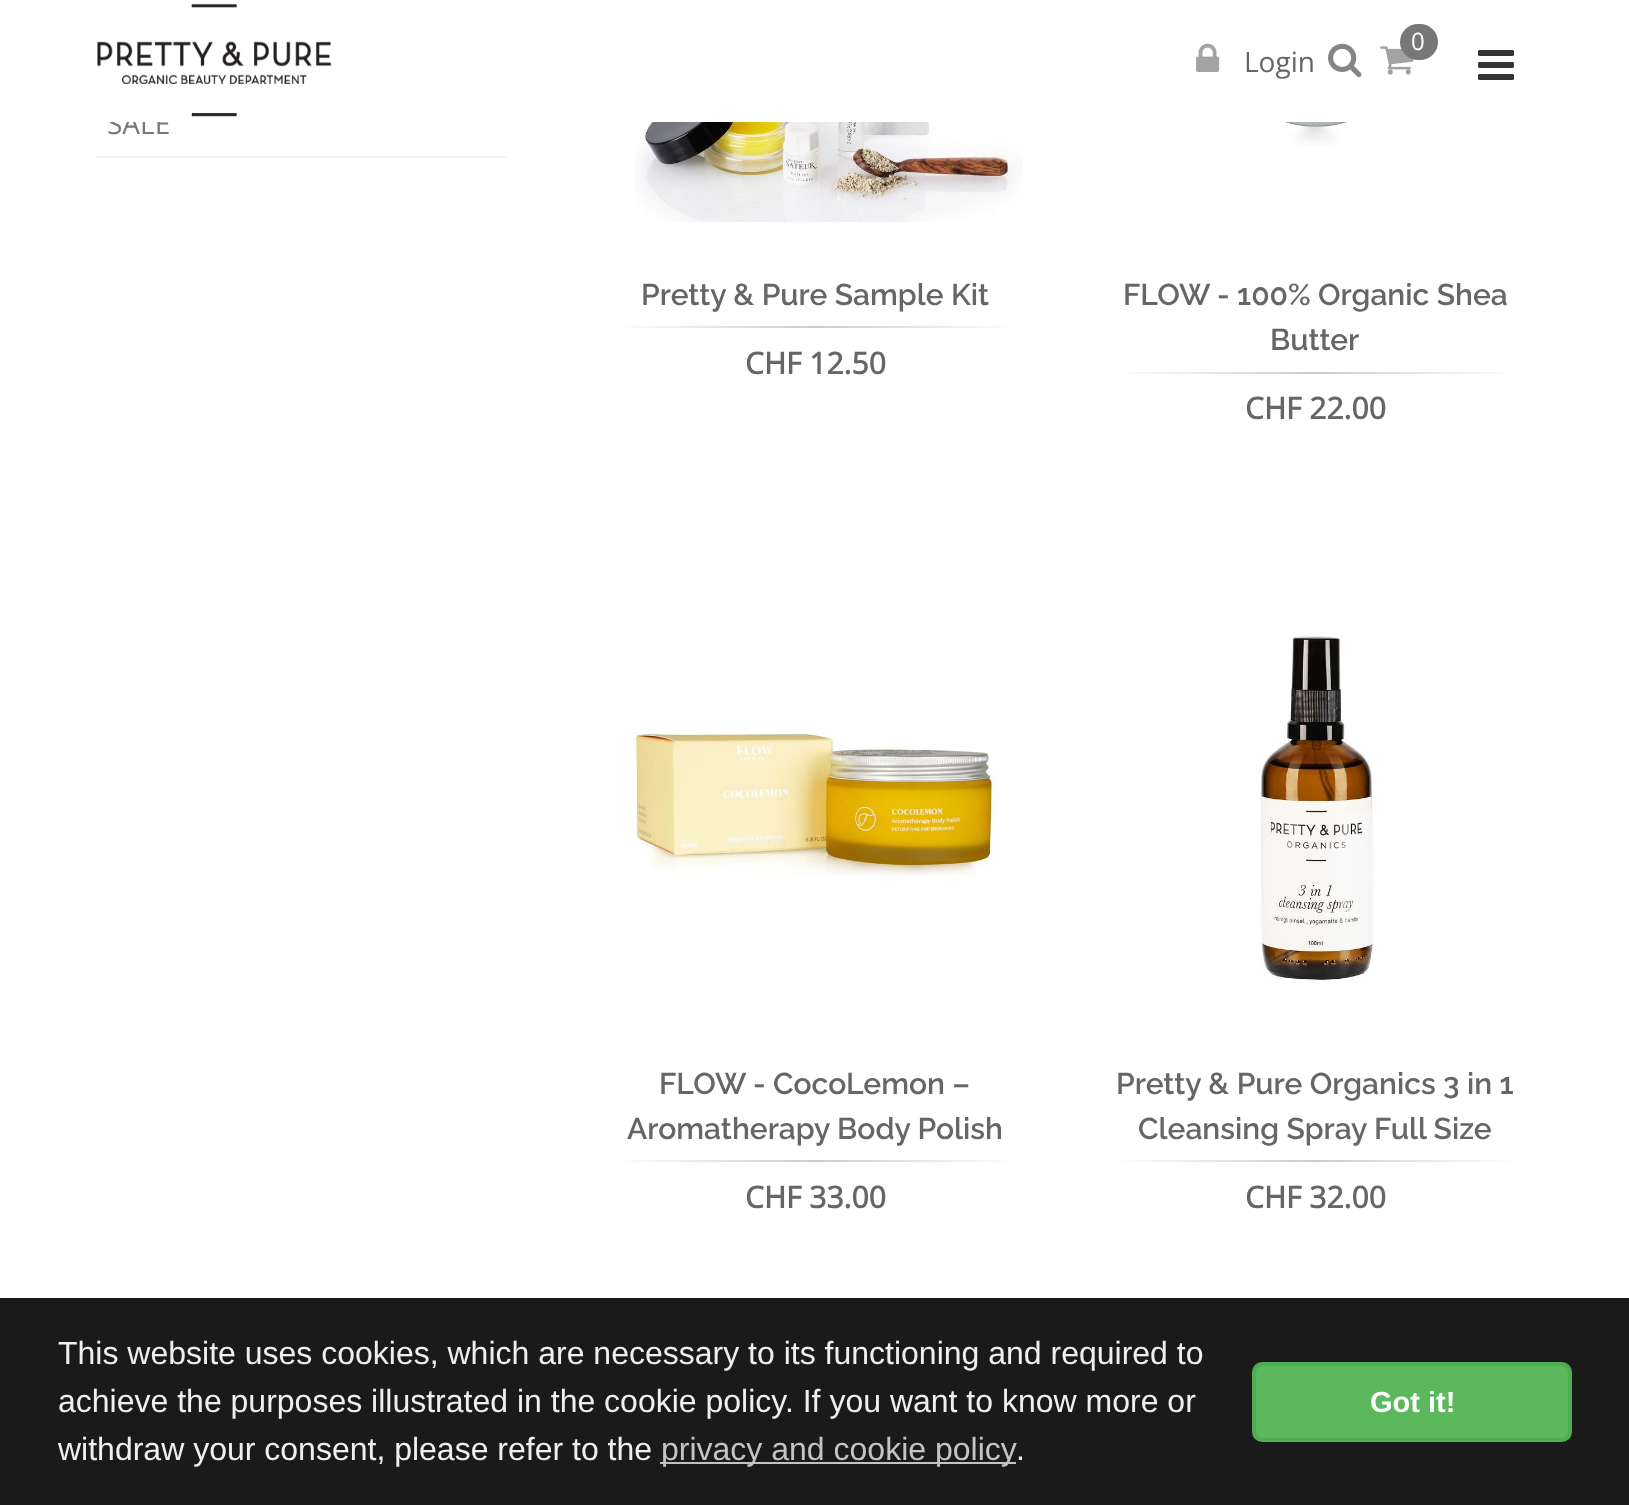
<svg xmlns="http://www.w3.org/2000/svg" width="1629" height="1505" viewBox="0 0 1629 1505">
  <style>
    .t1 { font: 28px Open Sans; fill: #777; }
    .t2 { font: 28px Open Sans; fill: #666; }
    .t3 { font: 24px Open Sans; fill: #fff; }
    .t4 { font: 600 30px Raleway; fill: #666; }
    .t5 { font: bold 30px Open Sans; fill: #666; }
    .t6 { font: 32px Liberation Sans; fill: #efefef; }
    .t7 { font: 32px Liberation Sans; fill: #c4c4c4; }
    .t8 { font: bold 29px Liberation Sans; fill: #fff; }
  </style>
  <defs>
    <linearGradient id="g1" gradientUnits="userSpaceOnUse" x1="612" y1="327" x2="1020" y2="327"><stop offset="0" stop-color="#fff"/><stop offset="0.5" stop-color="#ccc"/><stop offset="1" stop-color="#fff"/></linearGradient>
    <linearGradient id="g2" gradientUnits="userSpaceOnUse" x1="1112" y1="373" x2="1520" y2="373"><stop offset="0" stop-color="#fff"/><stop offset="0.5" stop-color="#ccc"/><stop offset="1" stop-color="#fff"/></linearGradient>
    <linearGradient id="g3" gradientUnits="userSpaceOnUse" x1="612" y1="1161" x2="1020" y2="1161"><stop offset="0" stop-color="#fff"/><stop offset="0.5" stop-color="#ccc"/><stop offset="1" stop-color="#fff"/></linearGradient>
    <linearGradient id="g4" gradientUnits="userSpaceOnUse" x1="1112" y1="1161" x2="1520" y2="1161"><stop offset="0" stop-color="#fff"/><stop offset="0.5" stop-color="#ccc"/><stop offset="1" stop-color="#fff"/></linearGradient>
  </defs>
  <rect width="100%" height="100%" fill="#fff"/>
  <text x="107" y="134" class="t1">SALE</text>
  <rect x="108" y="113" width="61" height="9" fill="#fff"/>
  <image x="97" y="3" width="235" height="114" href="images/1.png"/>
  <image x="1196" y="43" width="24" height="29" href="images/2.png"/>
  <text x="1244" y="72" class="t2">Login</text>
  <image x="1328" y="43" width="34" height="35" href="images/3.png"/>
  <image x="1380" y="46" width="34" height="29" href="images/4.png"/>
  <rect x="1400" y="24" width="38" height="36" rx="18" fill="#777"/>
  <text x="1411" y="50" class="t3">0</text>
  <image x="1478" y="50" width="36" height="30" href="images/5.png"/>
  <rect x="96" y="156" width="410" height="2" fill="#f2f2f2"/>
  <image x="635" y="122" width="388" height="100" href="images/6.png"/>
  <text x="641" y="305" class="t4">Pretty &amp; Pure Sample Kit</text>
  <rect x="622" y="326" width="388" height="2" fill="url(#g1)"/>
  <text x="745" y="374" class="t5">CHF 12.50</text>
  <image x="1209" y="122" width="214" height="24" href="images/7.png"/>
  <text x="1123" y="305" class="t4">FLOW - 100% Organic Shea</text>
  <text x="1270" y="350" class="t4">Butter</text>
  <rect x="1122" y="372" width="388" height="2" fill="url(#g2)"/>
  <text x="1245" y="419" class="t5">CHF 22.00</text>
  <image x="633" y="733" width="366" height="143" href="images/8.png"/>
  <text x="659" y="1094" class="t4">FLOW - CocoLemon –</text>
  <text x="627" y="1139" class="t4">Aromatherapy Body Polish</text>
  <rect x="622" y="1160" width="388" height="2" fill="url(#g3)"/>
  <text x="745" y="1208" class="t5">CHF 33.00</text>
  <image x="1258" y="635" width="116" height="348" href="images/9.png"/>
  <text x="1116" y="1094" class="t4">Pretty &amp; Pure Organics 3 in 1</text>
  <text x="1138" y="1139" class="t4">Cleansing Spray Full Size</text>
  <rect x="1122" y="1160" width="388" height="2" fill="url(#g4)"/>
  <text x="1245" y="1208" class="t5">CHF 32.00</text>
  <rect x="0" y="1298" width="1629" height="207" fill="#1a1a1a"/>
  <text x="58" y="1364" class="t6">This website uses cookies, which are necessary to its functioning and required to</text>
  <text x="58" y="1412" class="t6">achieve the purposes illustrated in the cookie policy. If you want to know more or</text>
  <text x="58" y="1460" class="t6">withdraw your consent, please refer to the</text>
  <rect x="660" y="1462" width="356" height="2" fill="#c4c4c4"/>
  <text x="661" y="1460" class="t7">privacy and cookie policy</text>
  <text x="1016" y="1460" class="t6">.</text>
  <rect x="1254" y="1364" width="316" height="76" rx="8" fill="#5cb85c" stroke="#4cae4c" stroke-width="4"/>
  <text x="1370" y="1412" class="t8">Got it!</text>
</svg>
